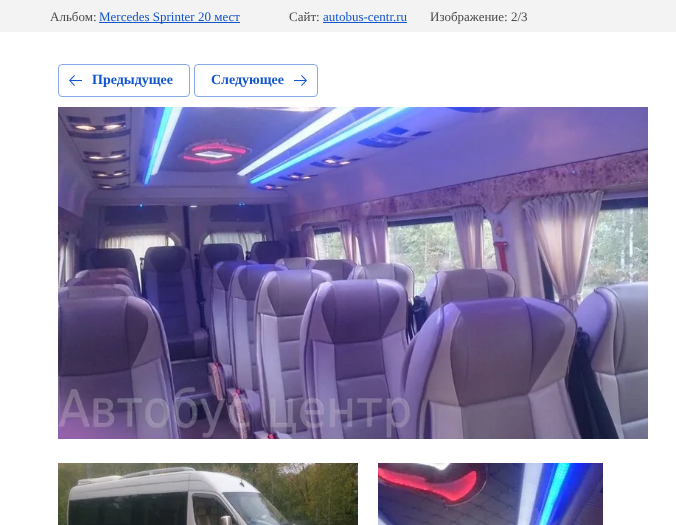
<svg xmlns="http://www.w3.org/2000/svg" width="676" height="525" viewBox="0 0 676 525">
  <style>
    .t1 { font: 13px Liberation Serif; fill: #484848; }
    .t2 { font: 13px Liberation Serif; fill: #15c; }
    .t3 { font: bold 14px Liberation Serif; fill: #15c; }
  </style>
  <rect width="100%" height="100%" fill="#fff"/>
  <rect x="0" y="0" width="676" height="32" fill="#f3f3f3"/>
  <text x="50" y="21" class="t1">Альбом:</text>
  <rect x="99" y="22" width="141" height="1" fill="#15c"/>
  <text x="99" y="21" class="t2">Mercedes Sprinter 20 мест</text>
  <text x="289" y="21" class="t1">Сайт:</text>
  <text x="323" y="21" class="t2">autobus-centr.ru</text>
  <rect x="323" y="22" width="84" height="1" fill="#15c"/>
  <text x="430" y="21" class="t1">Изображение: 2/3</text>
  <rect x="58.5" y="64.5" width="131" height="32" rx="3.5" fill="none" stroke="#88aae6"/>
  <image x="69" y="75" width="13" height="11" href="images/1.png"/>
  <text x="92" y="84" class="t3">Предыдущее</text>
  <rect x="194.5" y="64.5" width="123" height="32" rx="3.5" fill="none" stroke="#88aae6"/>
  <text x="211" y="84" class="t3">Следующее</text>
  <image x="294" y="75" width="13" height="11" href="images/2.png"/>
  <image x="58" y="107" width="590" height="332" href="images/3.png"/>
  <image x="58" y="463" width="300" height="62" href="images/4.png"/>
  <image x="378" y="463" width="225" height="62" href="images/5.png"/>
</svg>
